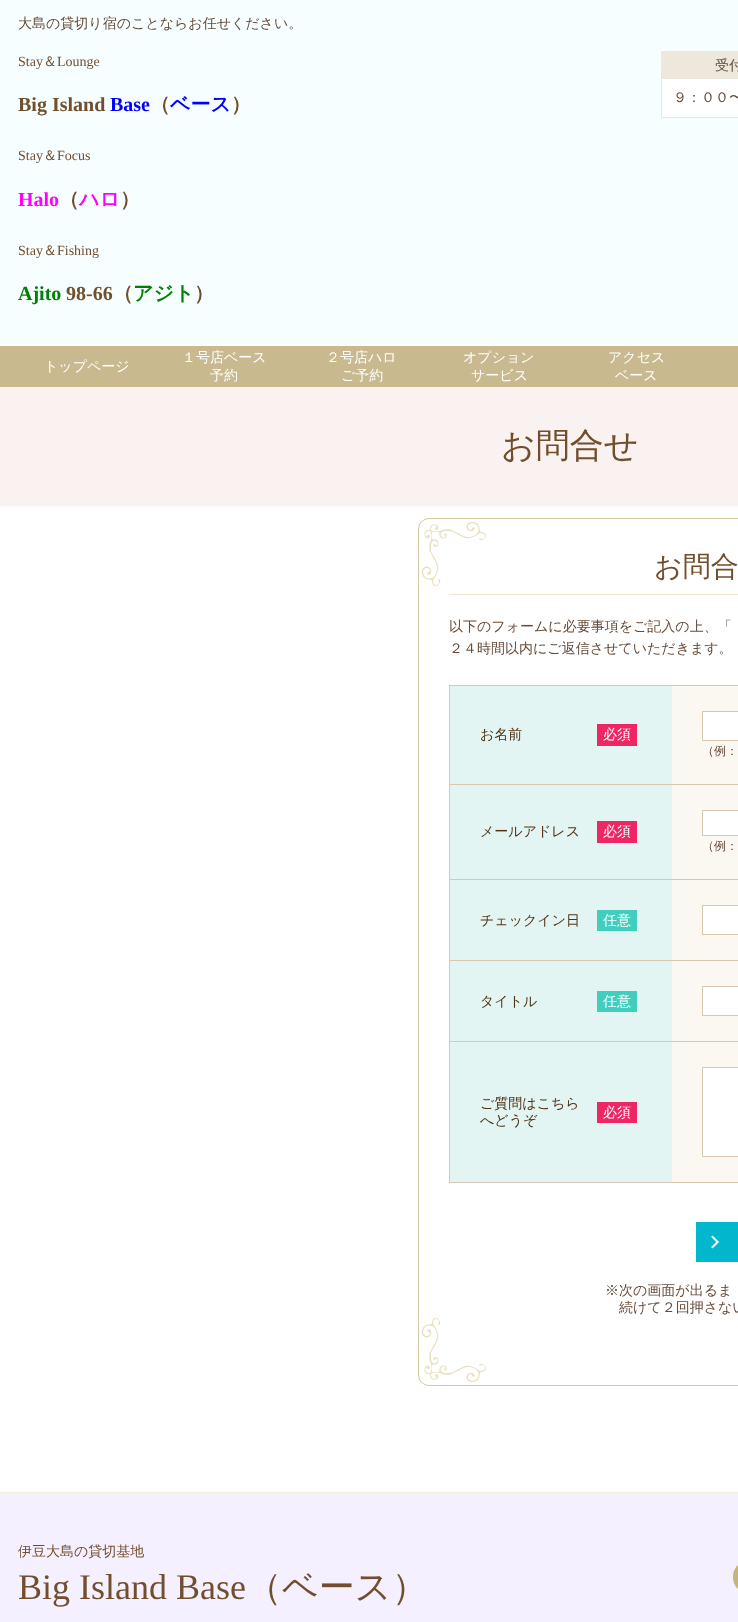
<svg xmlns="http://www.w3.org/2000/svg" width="738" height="1622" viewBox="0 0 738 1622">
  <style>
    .t1 { font: 500 14px WenQuanYi Zen Hei; fill: #664b3a; }
    .t2 { font: 14px Liberation Serif; fill: #714f2d; }
    .t3 { font: 500 14px WenQuanYi Zen Hei; fill: #714f2d; }
    .t4 { font: bold 20px Liberation Serif; fill: #714f2d; }
    .t5 { font: bold 20px Liberation Serif; fill: #00f; }
    .t6 { font: bold 20px WenQuanYi Zen Hei; fill: #714f2d; }
    .t7 { font: bold 20px WenQuanYi Zen Hei; fill: #00f; }
    .t8 { font: bold 20px Liberation Serif; fill: #f0f; }
    .t9 { font: bold 20px WenQuanYi Zen Hei; fill: #f0f; }
    .t10 { font: bold 20px Liberation Serif; fill: #008000; }
    .t11 { font: bold 20px WenQuanYi Zen Hei; fill: #008000; }
    .t12 { font: 500 14px WenQuanYi Zen Hei; fill: #fff; }
    .t13 { font: 500 34px WenQuanYi Zen Hei; fill: #714f2d; }
    .t14 { font: 500 28px WenQuanYi Zen Hei; fill: #714f2d; }
    .t15 { font: 500 14px WenQuanYi Zen Hei; fill: #513316; }
    .t16 { font: 500 12px WenQuanYi Zen Hei; fill: #664b3a; }
    .t17 { font: 36px Liberation Serif; fill: #714f2d; }
    .t18 { font: 500 36px WenQuanYi Zen Hei; fill: #714f2d; }
  </style>
  <rect width="100%" height="100%" fill="#fff"/>
  <rect x="0" y="0" width="738" height="346" fill="#f7feff"/>
  <text x="18" y="28" class="t1">大島の貸切り宿のことならお任せください。</text>
  <text x="18" y="66" class="t2">Stay</text>
  <text x="43" y="66" class="t3">＆</text>
  <text x="57" y="66" class="t2">Lounge</text>
  <text x="18" y="111" class="t4">Big Island</text>
  <text x="110" y="111" class="t5">Base</text>
  <text x="150" y="111" class="t6">（</text>
  <text x="170" y="111" class="t7">ベース</text>
  <text x="231" y="111" class="t6">）</text>
  <text x="18" y="160" class="t2">Stay</text>
  <text x="43" y="160" class="t3">＆</text>
  <text x="57" y="160" class="t2">Focus</text>
  <text x="18" y="206" class="t8">Halo</text>
  <text x="59" y="206" class="t6">（</text>
  <text x="79" y="206" class="t9">ハロ</text>
  <text x="120" y="206" class="t6">）</text>
  <text x="18" y="255" class="t2">Stay</text>
  <text x="43" y="255" class="t3">＆</text>
  <text x="57" y="255" class="t2">Fishing</text>
  <text x="18" y="300" class="t10">Ajito</text>
  <text x="66" y="300" class="t4">98-66</text>
  <text x="113" y="300" class="t6">（</text>
  <text x="133" y="300" class="t11">アジト</text>
  <text x="194" y="300" class="t6">）</text>
  <rect x="661.5" y="51.5" width="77" height="66" fill="none" stroke="#eee8dc"/>
  <rect x="662" y="52" width="76" height="27" fill="#eee8dc"/>
  <text x="715" y="70" class="t1">受付</text>
  <rect x="662" y="79" width="76" height="38" fill="#fff"/>
  <text x="673" y="102" class="t1">９：００〜</text>
  <rect x="0" y="346" width="738" height="41" fill="#c8b98e"/>
  <text x="44" y="371" class="t12">トップページ</text>
  <text x="182" y="362" class="t12">１号店ベース</text>
  <text x="210" y="380" class="t12">予約</text>
  <text x="326" y="362" class="t12">２号店ハロ</text>
  <text x="341" y="380" class="t12">ご予約</text>
  <text x="463" y="362" class="t12">オプション</text>
  <text x="471" y="380" class="t12">サービス</text>
  <text x="608" y="362" class="t12">アクセス</text>
  <text x="615" y="380" class="t12">ベース</text>
  <rect x="0" y="387" width="738" height="119" fill="#faf1f1"/>
  <text x="501" y="457" class="t13">お問合せ</text>
  <image x="422" y="522" width="64" height="860" href="images/1.png"/>
  <rect x="418.5" y="518.5" width="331" height="867" rx="10.5" fill="none" stroke="#d4c7a0"/>
  <rect x="449" y="594" width="289" height="1" fill="#f0e9d2"/>
  <text x="654" y="576" class="t14">お問合</text>
  <text x="449" y="631" class="t1">以下のフォームに必要事項をご記入の上、「</text>
  <text x="449" y="653" class="t1">２４時間以内にご返信させていただきます。</text>
  <rect x="672" y="686" width="66" height="496" fill="#fbf8f2"/>
  <rect x="449" y="685" width="289" height="1" fill="#d8c8b1"/>
  <rect x="449" y="1182" width="289" height="1" fill="#d8c8b1"/>
  <rect x="449" y="685" width="1" height="498" fill="#d8c8b1"/>
  <rect x="450" y="686" width="222" height="98" fill="#e3f5f3"/>
  <text x="480" y="739" class="t15">お名前</text>
  <rect x="597" y="724" width="40" height="22" fill="#ee2663"/>
  <text x="603" y="739" class="t12">必須</text>
  <rect x="702.5" y="711.5" width="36" height="29" fill="#fff" stroke="#d8c8b1"/>
  <text x="702" y="755" class="t16">（例：</text>
  <rect x="450" y="785" width="222" height="94" fill="#e3f5f3"/>
  <text x="480" y="836" class="t15">メールアドレス</text>
  <rect x="597" y="821" width="40" height="22" fill="#ee2663"/>
  <text x="603" y="836" class="t12">必須</text>
  <rect x="449" y="784" width="289" height="1" fill="#d8c8b1"/>
  <rect x="702.5" y="810.5" width="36" height="25" fill="#fff" stroke="#d8c8b1"/>
  <text x="702" y="850" class="t16">（例：</text>
  <rect x="449" y="879" width="289" height="1" fill="#d8c8b1"/>
  <rect x="702.5" y="905.5" width="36" height="29" fill="#fff" stroke="#d8c8b1"/>
  <rect x="450" y="880" width="222" height="80" fill="#e3f5f3"/>
  <text x="480" y="925" class="t15">チェックイン日</text>
  <rect x="597" y="910" width="40" height="21" fill="#41cebe"/>
  <text x="603" y="925" class="t12">任意</text>
  <rect x="449" y="960" width="289" height="1" fill="#d8c8b1"/>
  <rect x="702.5" y="986.5" width="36" height="29" fill="#fff" stroke="#d8c8b1"/>
  <rect x="450" y="961" width="222" height="80" fill="#e3f5f3"/>
  <text x="480" y="1006" class="t15">タイトル</text>
  <rect x="597" y="991" width="40" height="21" fill="#41cebe"/>
  <text x="603" y="1006" class="t12">任意</text>
  <rect x="449" y="1041" width="289" height="1" fill="#d8c8b1"/>
  <rect x="702.5" y="1067.5" width="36" height="89" fill="#fff" stroke="#d8c8b1"/>
  <rect x="450" y="1042" width="222" height="140" fill="#e3f5f3"/>
  <text x="480" y="1108" class="t15">ご質問はこちら</text>
  <text x="480" y="1125" class="t15">へどうぞ</text>
  <rect x="597" y="1102" width="40" height="21" fill="#ee2663"/>
  <text x="603" y="1117" class="t12">必須</text>
  <rect x="696" y="1222" width="42" height="40" fill="#00b7cd"/>
  <image x="711" y="1235" width="8" height="14" href="images/2.png"/>
  <text x="605" y="1295" class="t1">※次の画面が出るま</text>
  <text x="619" y="1312" class="t1">続けて２回押さない</text>
  <rect x="0" y="1492" width="738" height="1" fill="#f5ecdb"/>
  <rect x="0" y="1493" width="738" height="129" fill="#f4f0ff"/>
  <text x="18" y="1556" class="t3">伊豆大島の貸切基地</text>
  <text x="18" y="1599" class="t17">Big Island Base</text>
  <text x="246" y="1599" class="t18">（ベース）</text>
  <rect x="734" y="1564" width="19" height="26" rx="13" fill="#c4b482" stroke="#c4b482" stroke-width="2"/>
</svg>
